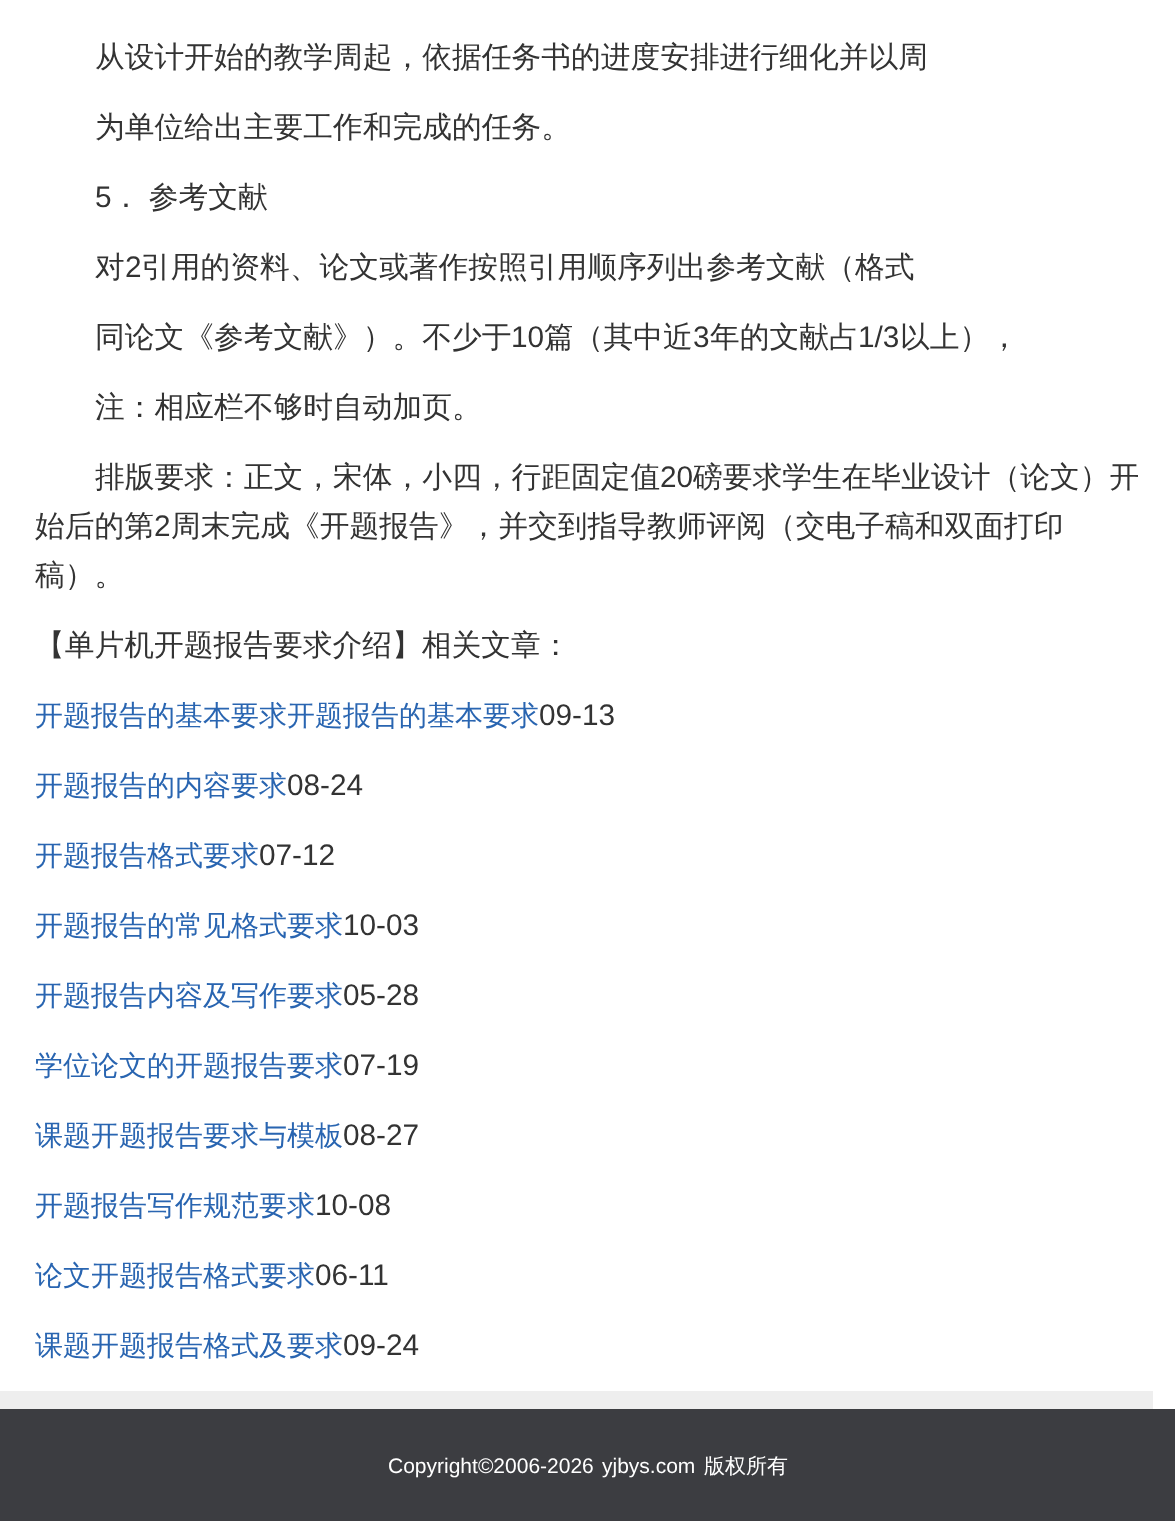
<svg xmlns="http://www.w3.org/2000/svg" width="1175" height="1521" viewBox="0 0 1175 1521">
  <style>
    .t1 { font: 500 29.75px WenQuanYi Zen Hei; fill: #333; }
    .t2 { font: 29.75px Liberation Sans; fill: #333; }
    .t3 { font: 500 28px WenQuanYi Zen Hei; fill: #2965b1; }
    .t4 { font: 21px Liberation Sans; fill: #fff; }
    .t5 { font: 500 21px WenQuanYi Zen Hei; fill: #fff; }
  </style>
  <rect width="100%" height="100%" fill="#fff"/>
  <text x="95" y="67" class="t1">从设计开始的教学周起，依据任务书的进度安排进行细化并以周</text>
  <text x="95" y="137" class="t1">为单位给出主要工作和完成的任务。</text>
  <text x="95" y="207" class="t2">5</text>
  <text x="111" y="207" word-spacing="-1" class="t1">． 参考文献</text>
  <text x="95" y="277" class="t1">对</text>
  <text x="125" y="277" class="t2">2</text>
  <text x="141" y="277" class="t1">引用的资料、论文或著作按照引用顺序列出参考文献（格式</text>
  <text x="95" y="347" class="t1">同论文《参考文献》）。不少于</text>
  <text x="511" y="347" class="t2">10</text>
  <text x="544" y="347" class="t1">篇（其中近</text>
  <text x="693" y="347" class="t2">3</text>
  <text x="710" y="347" class="t1">年的文献占</text>
  <text x="858" y="347" class="t2">1/3</text>
  <text x="900" y="347" class="t1">以上），</text>
  <text x="95" y="417" class="t1">注：相应栏不够时自动加页。</text>
  <text x="95" y="487" class="t1">排版要求：正文，宋体，小四，行距固定值</text>
  <text x="660" y="487" class="t2">20</text>
  <text x="693" y="487" class="t1">磅要求学生在毕业设计（论文）开</text>
  <text x="35" y="536" class="t1">始后的第</text>
  <text x="154" y="536" class="t2">2</text>
  <text x="171" y="536" class="t1">周末完成《开题报告》，并交到指导教师评阅（交电子稿和双面打印</text>
  <text x="35" y="585" class="t1">稿）。</text>
  <text x="35" y="655" class="t1">【单片机开题报告要求介绍】相关文章：</text>
  <text x="35" y="725" class="t3">开题报告的基本要求开题报告的基本要求</text>
  <text x="539" y="725" class="t2">09-13</text>
  <text x="35" y="795" class="t3">开题报告的内容要求</text>
  <text x="287" y="795" class="t2">08-24</text>
  <text x="35" y="865" class="t3">开题报告格式要求</text>
  <text x="259" y="865" class="t2">07-12</text>
  <text x="35" y="935" class="t3">开题报告的常见格式要求</text>
  <text x="343" y="935" class="t2">10-03</text>
  <text x="35" y="1005" class="t3">开题报告内容及写作要求</text>
  <text x="343" y="1005" class="t2">05-28</text>
  <text x="35" y="1075" class="t3">学位论文的开题报告要求</text>
  <text x="343" y="1075" class="t2">07-19</text>
  <text x="35" y="1145" class="t3">课题开题报告要求与模板</text>
  <text x="343" y="1145" class="t2">08-27</text>
  <text x="35" y="1215" class="t3">开题报告写作规范要求</text>
  <text x="315" y="1215" class="t2">10-08</text>
  <text x="35" y="1285" class="t3">论文开题报告格式要求</text>
  <text x="315" y="1285" class="t2">06-11</text>
  <text x="35" y="1355" class="t3">课题开题报告格式及要求</text>
  <text x="343" y="1355" class="t2">09-24</text>
  <rect x="0" y="1391" width="1153" height="18" fill="#eee"/>
  <rect x="0" y="1409" width="1175" height="112" fill="#3c3d41"/>
  <text x="388" y="1473" class="t4">Copyright©2006-2026</text>
  <text x="602" y="1473" class="t4">yjbys.com</text>
  <text x="704" y="1473" class="t5">版权所有</text>
</svg>
